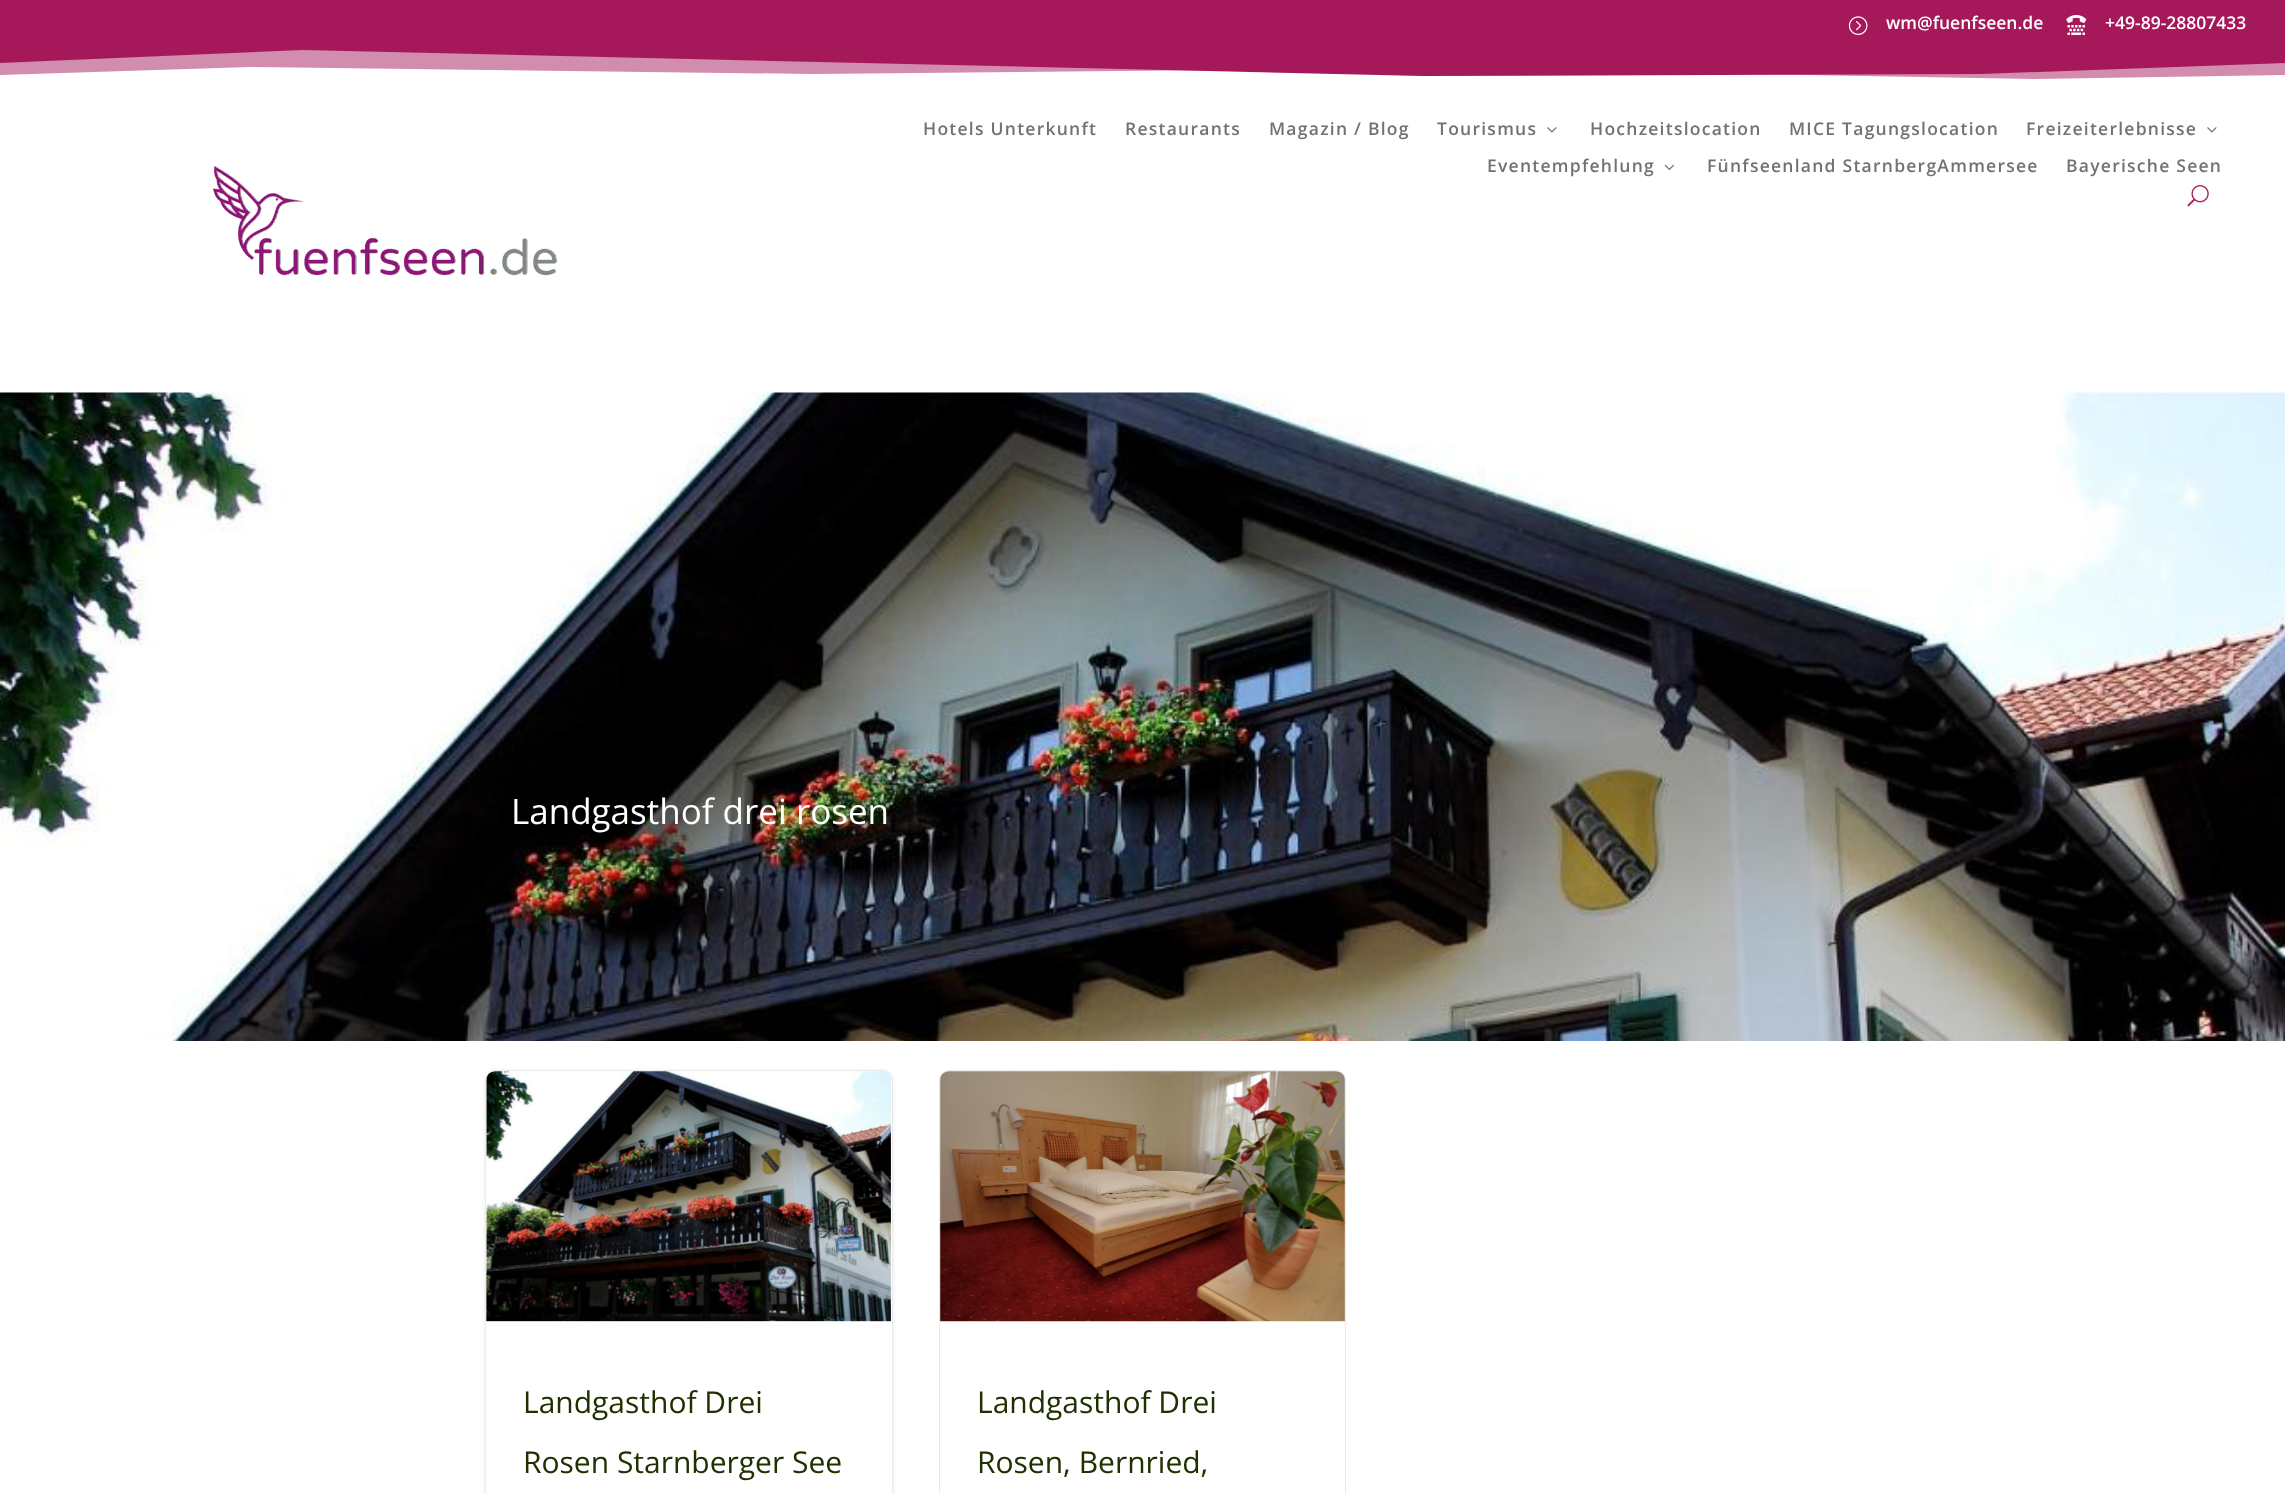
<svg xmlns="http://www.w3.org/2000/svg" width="2285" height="1494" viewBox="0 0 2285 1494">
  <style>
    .t1 { font: 600 17.5px Open Sans; fill: #fff; }
    .t2 { font: 600 17.5px Open Sans; letter-spacing: 1.25px; fill: #727272; }
    .t3 { font: 35px Open Sans; fill: #fff; }
    .t4 { font: 30px Open Sans; fill: #213000; }
  </style>
  <rect width="100%" height="100%" fill="#fff"/>
  <rect x="0" y="0" width="2285" height="50" fill="#a5185a"/>
  <image x="1848" y="16" width="20" height="19" href="images/1.png"/>
  <text x="1886" y="29" class="t1">wm@fuenfseen.de</text>
  <image x="2066" y="15" width="21" height="20" href="images/2.png"/>
  <text x="2105" y="29" class="t1">+49-89-28807433</text>
  <path d="M0 75L250 67L813 74L1422 68L2035 79L2285 75V50H0Z" fill="#d28cad"/>
  <path d="M0 50V63L303 50L1422 76L1982 74L2285 63V50Z" fill="#a5185a"/>
  <text x="923" y="135" class="t2">Hotels Unterkunft</text>
  <text x="1125" y="135" class="t2">Restaurants</text>
  <text x="1269" y="135" class="t2">Magazin / Blog</text>
  <text x="1437" y="135" class="t2">Tourismus</text>
  <image x="1547" y="127" width="10" height="6" href="images/3.png"/>
  <text x="1590" y="135" class="t2">Hochzeitslocation</text>
  <text x="1789" y="135" class="t2">MICE Tagungslocation</text>
  <text x="2026" y="135" class="t2">Freizeiterlebnisse</text>
  <image x="2207" y="127" width="10" height="6" href="images/3.png"/>
  <text x="1487" y="172" class="t2">Eventempfehlung</text>
  <image x="1664" y="164" width="10" height="6" href="images/4.png"/>
  <text x="1707" y="172" class="t2">Fünfseenland StarnbergAmmersee</text>
  <text x="2066" y="172" class="t2">Bayerische Seen</text>
  <image x="2187" y="185" width="22" height="22" href="images/5.png"/>
  <image x="212" y="165" width="345" height="111" href="images/6.png"/>
  <image x="0" y="392" width="2285" height="649" href="images/7.png"/>
  <text x="511" y="824" class="t3">Landgasthof drei rosen</text>
  <rect x="485" y="1071" width="408" height="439" rx="10" fill="#00000014" filter="blur(2px)"/>
  <rect x="485.5" y="1070.5" width="407" height="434" rx="9.5" fill="#fff" stroke="#eaeaea"/>
  <image x="486" y="1071" width="405" height="251" href="images/8.png"/>
  <text x="523" y="1413" class="t4">Landgasthof Drei</text>
  <text x="523" y="1473" class="t4">Rosen Starnberger See</text>
  <rect x="939.5" y="1070.5" width="406" height="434" rx="9.5" fill="none" stroke="#eaeaea"/>
  <image x="940" y="1071" width="405" height="251" href="images/9.png"/>
  <text x="977" y="1413" class="t4">Landgasthof Drei</text>
  <text x="977" y="1473" class="t4">Rosen, Bernried,</text>
</svg>
